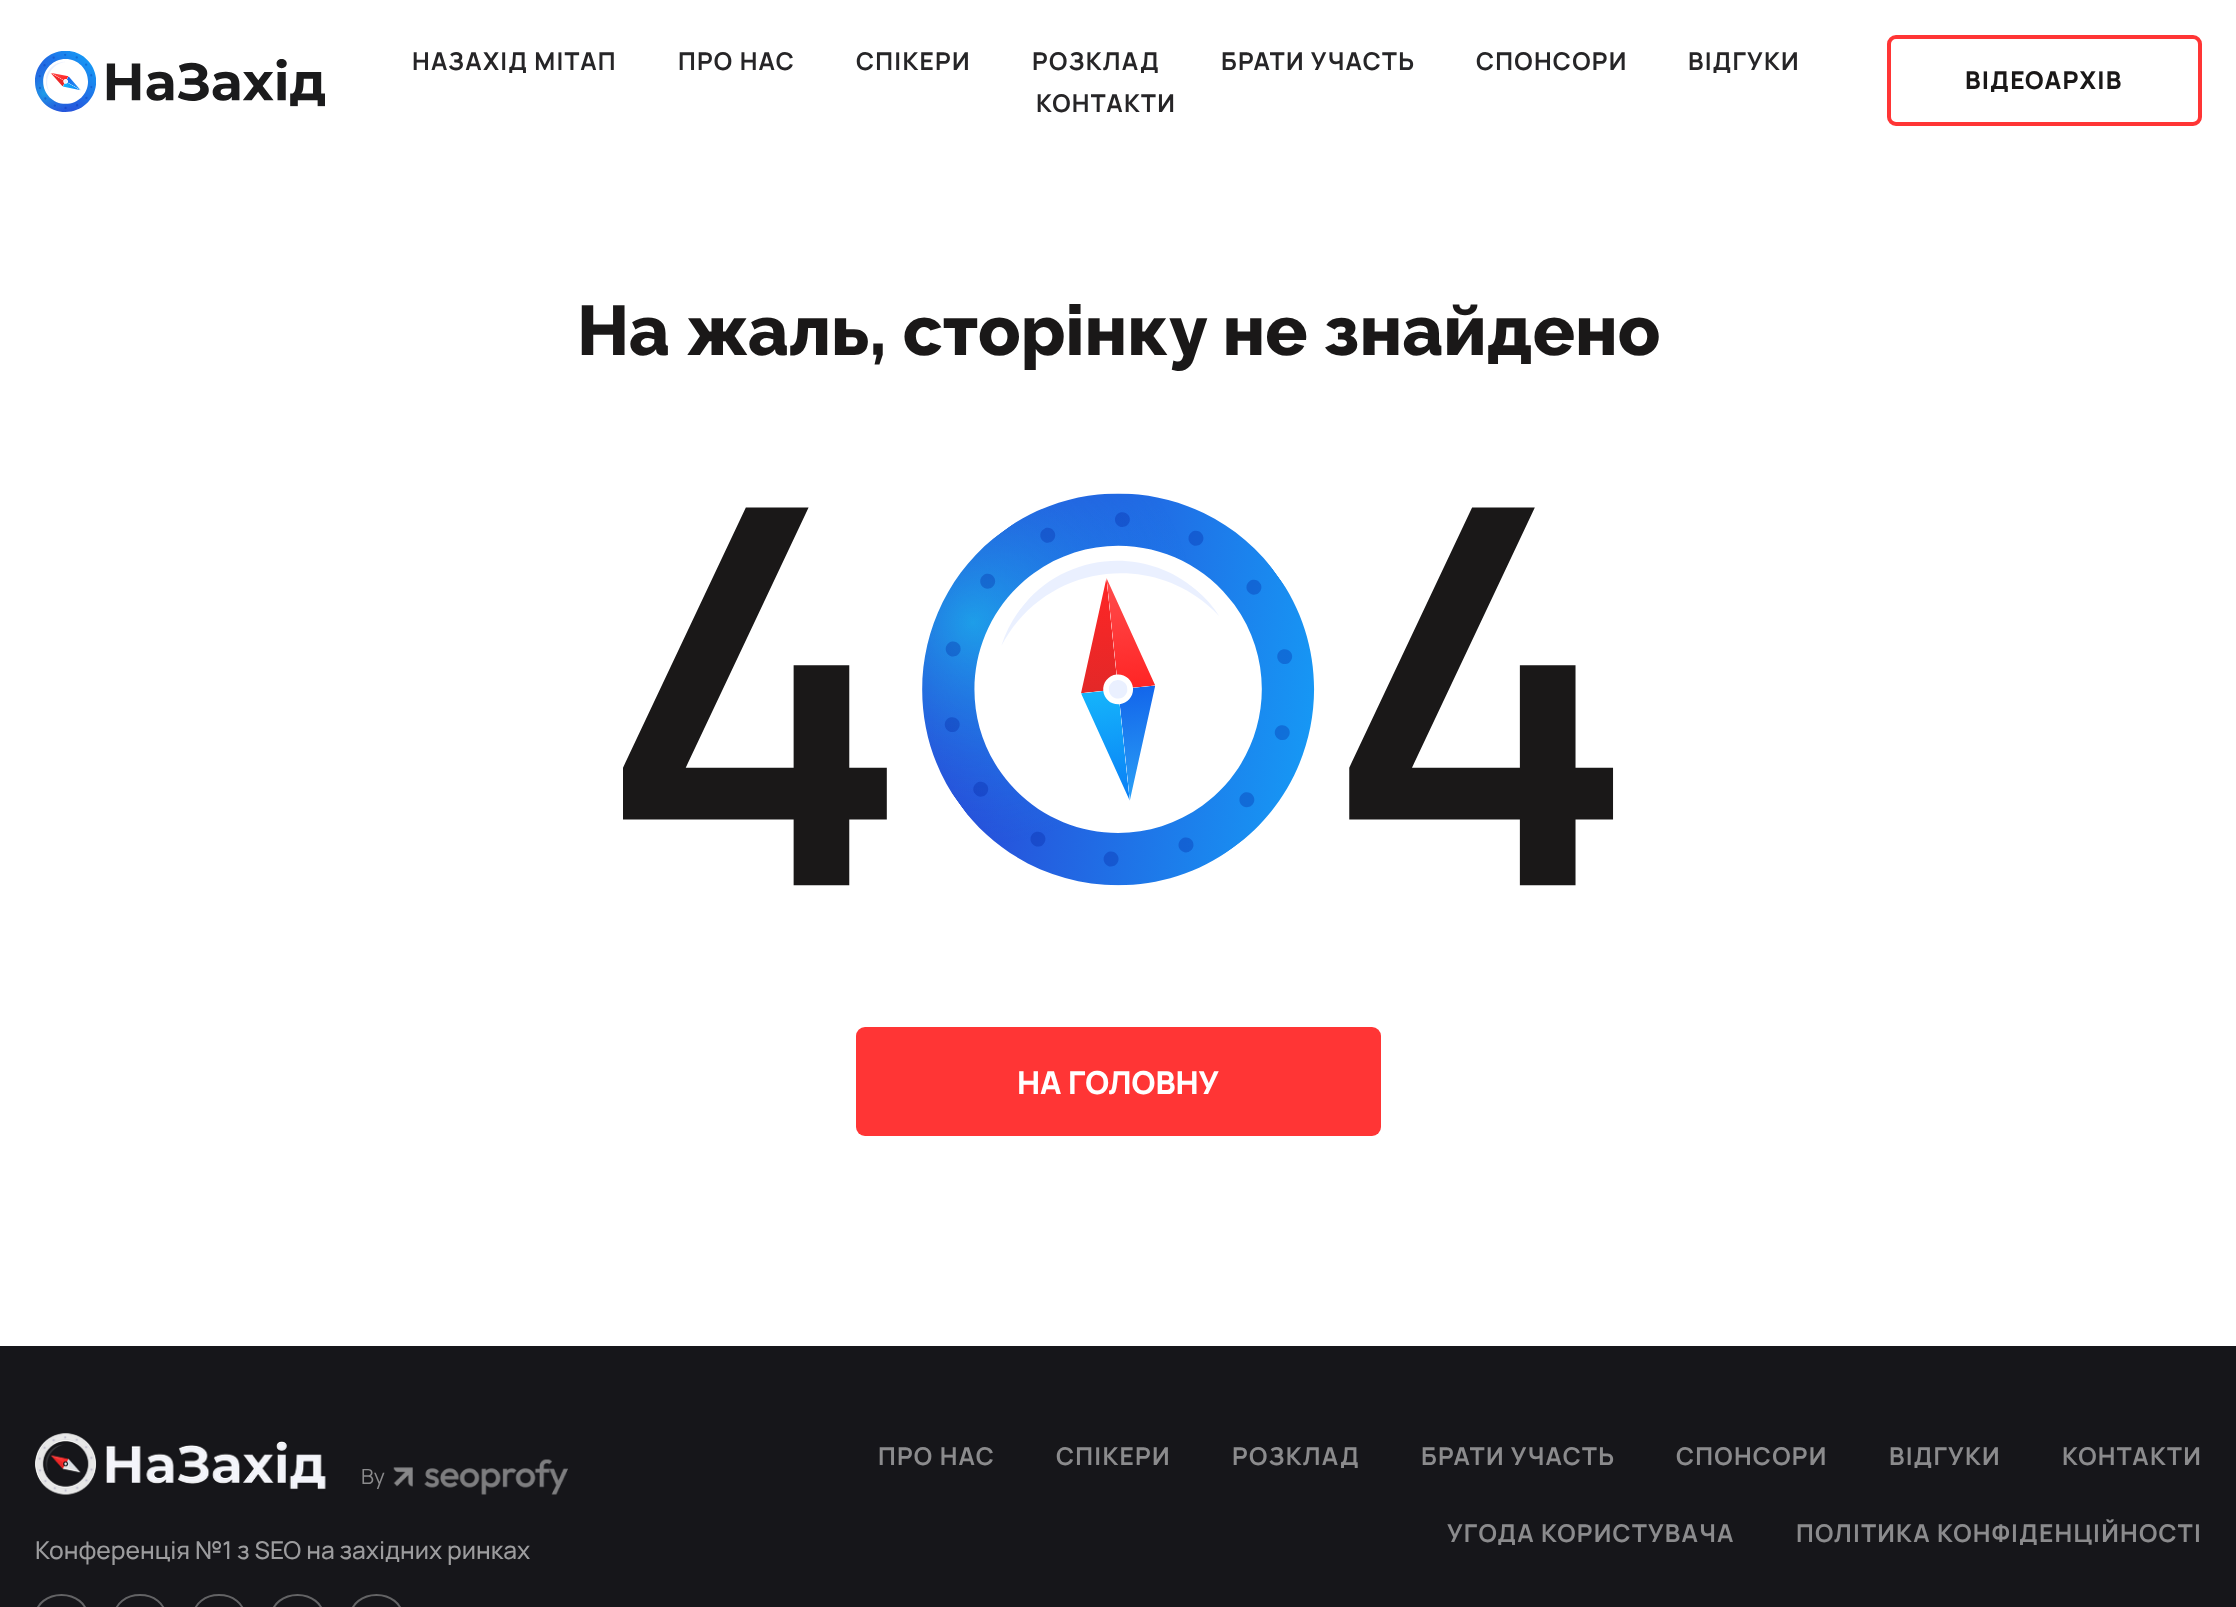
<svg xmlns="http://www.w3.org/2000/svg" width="2236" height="1607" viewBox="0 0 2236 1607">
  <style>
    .t1 { font: 200 24.5px 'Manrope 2'; letter-spacing: 1.25px; fill: #262527; }
    .t2 { font: 200 24.5px 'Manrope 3'; letter-spacing: 1.25px; fill: #1a1818; }
    .t3 { font: 800 70px Raleway; fill: #1a1818; }
    .t4 { font: 200 31.5px 'Manrope 3'; fill: #fff; }
    .t5 { font: 21px Manrope; fill: #8b8b8d; }
    .t6 { font: 200 24.5px Manrope; fill: #9c9c9e; }
    .t7 { font: 200 24.5px 'Manrope 2'; letter-spacing: 1.25px; fill: #8b8b8d; }
  </style>
  <rect width="100%" height="100%" fill="#fff"/>
  <image x="35" y="51" width="290" height="61" href="images/1.png"/>
  <text x="412" y="70" class="t1">НАЗАХІД МІТАП</text>
  <text x="678" y="70" class="t1">ПРО НАС</text>
  <text x="856" y="70" class="t1">СПІКЕРИ</text>
  <text x="1032" y="70" class="t1">РОЗКЛАД</text>
  <text x="1221" y="70" class="t1">БРАТИ УЧАСТЬ</text>
  <text x="1476" y="70" class="t1">СПОНСОРИ</text>
  <text x="1688" y="70" class="t1">ВІДГУКИ</text>
  <text x="1036" y="112" class="t1">КОНТАКТИ</text>
  <rect x="1889" y="37" width="311" height="87" rx="7" fill="none" stroke="#ff3535" stroke-width="4"/>
  <text x="1965" y="89" class="t2">ВІДЕОАРХІВ</text>
  <text x="577" y="355" class="t3">На жаль, сторінку не знайдено</text>
  <image x="623" y="493" width="991" height="393" href="images/2.png"/>
  <rect x="856" y="1027" width="525" height="109" rx="9" fill="#ff3535"/>
  <text x="1017" y="1094" class="t4">НА ГОЛОВНУ</text>
  <rect x="0" y="1346" width="2236" height="261" fill="#16161a"/>
  <image x="35" y="1433" width="291" height="62" href="images/3.png"/>
  <text x="361" y="1484" class="t5">By</text>
  <image x="393" y="1459" width="175" height="36" href="images/4.png"/>
  <text x="35" y="1559" class="t6">Конференція №1 з SEO на західних ринках</text>
  <rect x="36" y="1595" width="51" height="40" rx="25.5" fill="none" stroke="#636365" stroke-width="2"/>
  <rect x="115" y="1595" width="50" height="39" rx="25" fill="none" stroke="#636365" stroke-width="2"/>
  <rect x="194" y="1595" width="50" height="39" rx="25" fill="none" stroke="#636365" stroke-width="2"/>
  <rect x="272" y="1595" width="51" height="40" rx="25.5" fill="none" stroke="#636365" stroke-width="2"/>
  <rect x="351" y="1595" width="51" height="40" rx="25.5" fill="none" stroke="#636365" stroke-width="2"/>
  <text x="878" y="1465" class="t7">ПРО НАС</text>
  <text x="1056" y="1465" class="t7">СПІКЕРИ</text>
  <text x="1232" y="1465" class="t7">РОЗКЛАД</text>
  <text x="1421" y="1465" class="t7">БРАТИ УЧАСТЬ</text>
  <text x="1676" y="1465" class="t7">СПОНСОРИ</text>
  <text x="1889" y="1465" class="t7">ВІДГУКИ</text>
  <text x="2062" y="1465" class="t7">КОНТАКТИ</text>
  <text x="1447" y="1542" class="t7">УГОДА КОРИСТУВАЧА</text>
  <text x="1796" y="1542" class="t7">ПОЛІТИКА КОНФІДЕНЦІЙНОСТІ</text>
</svg>
